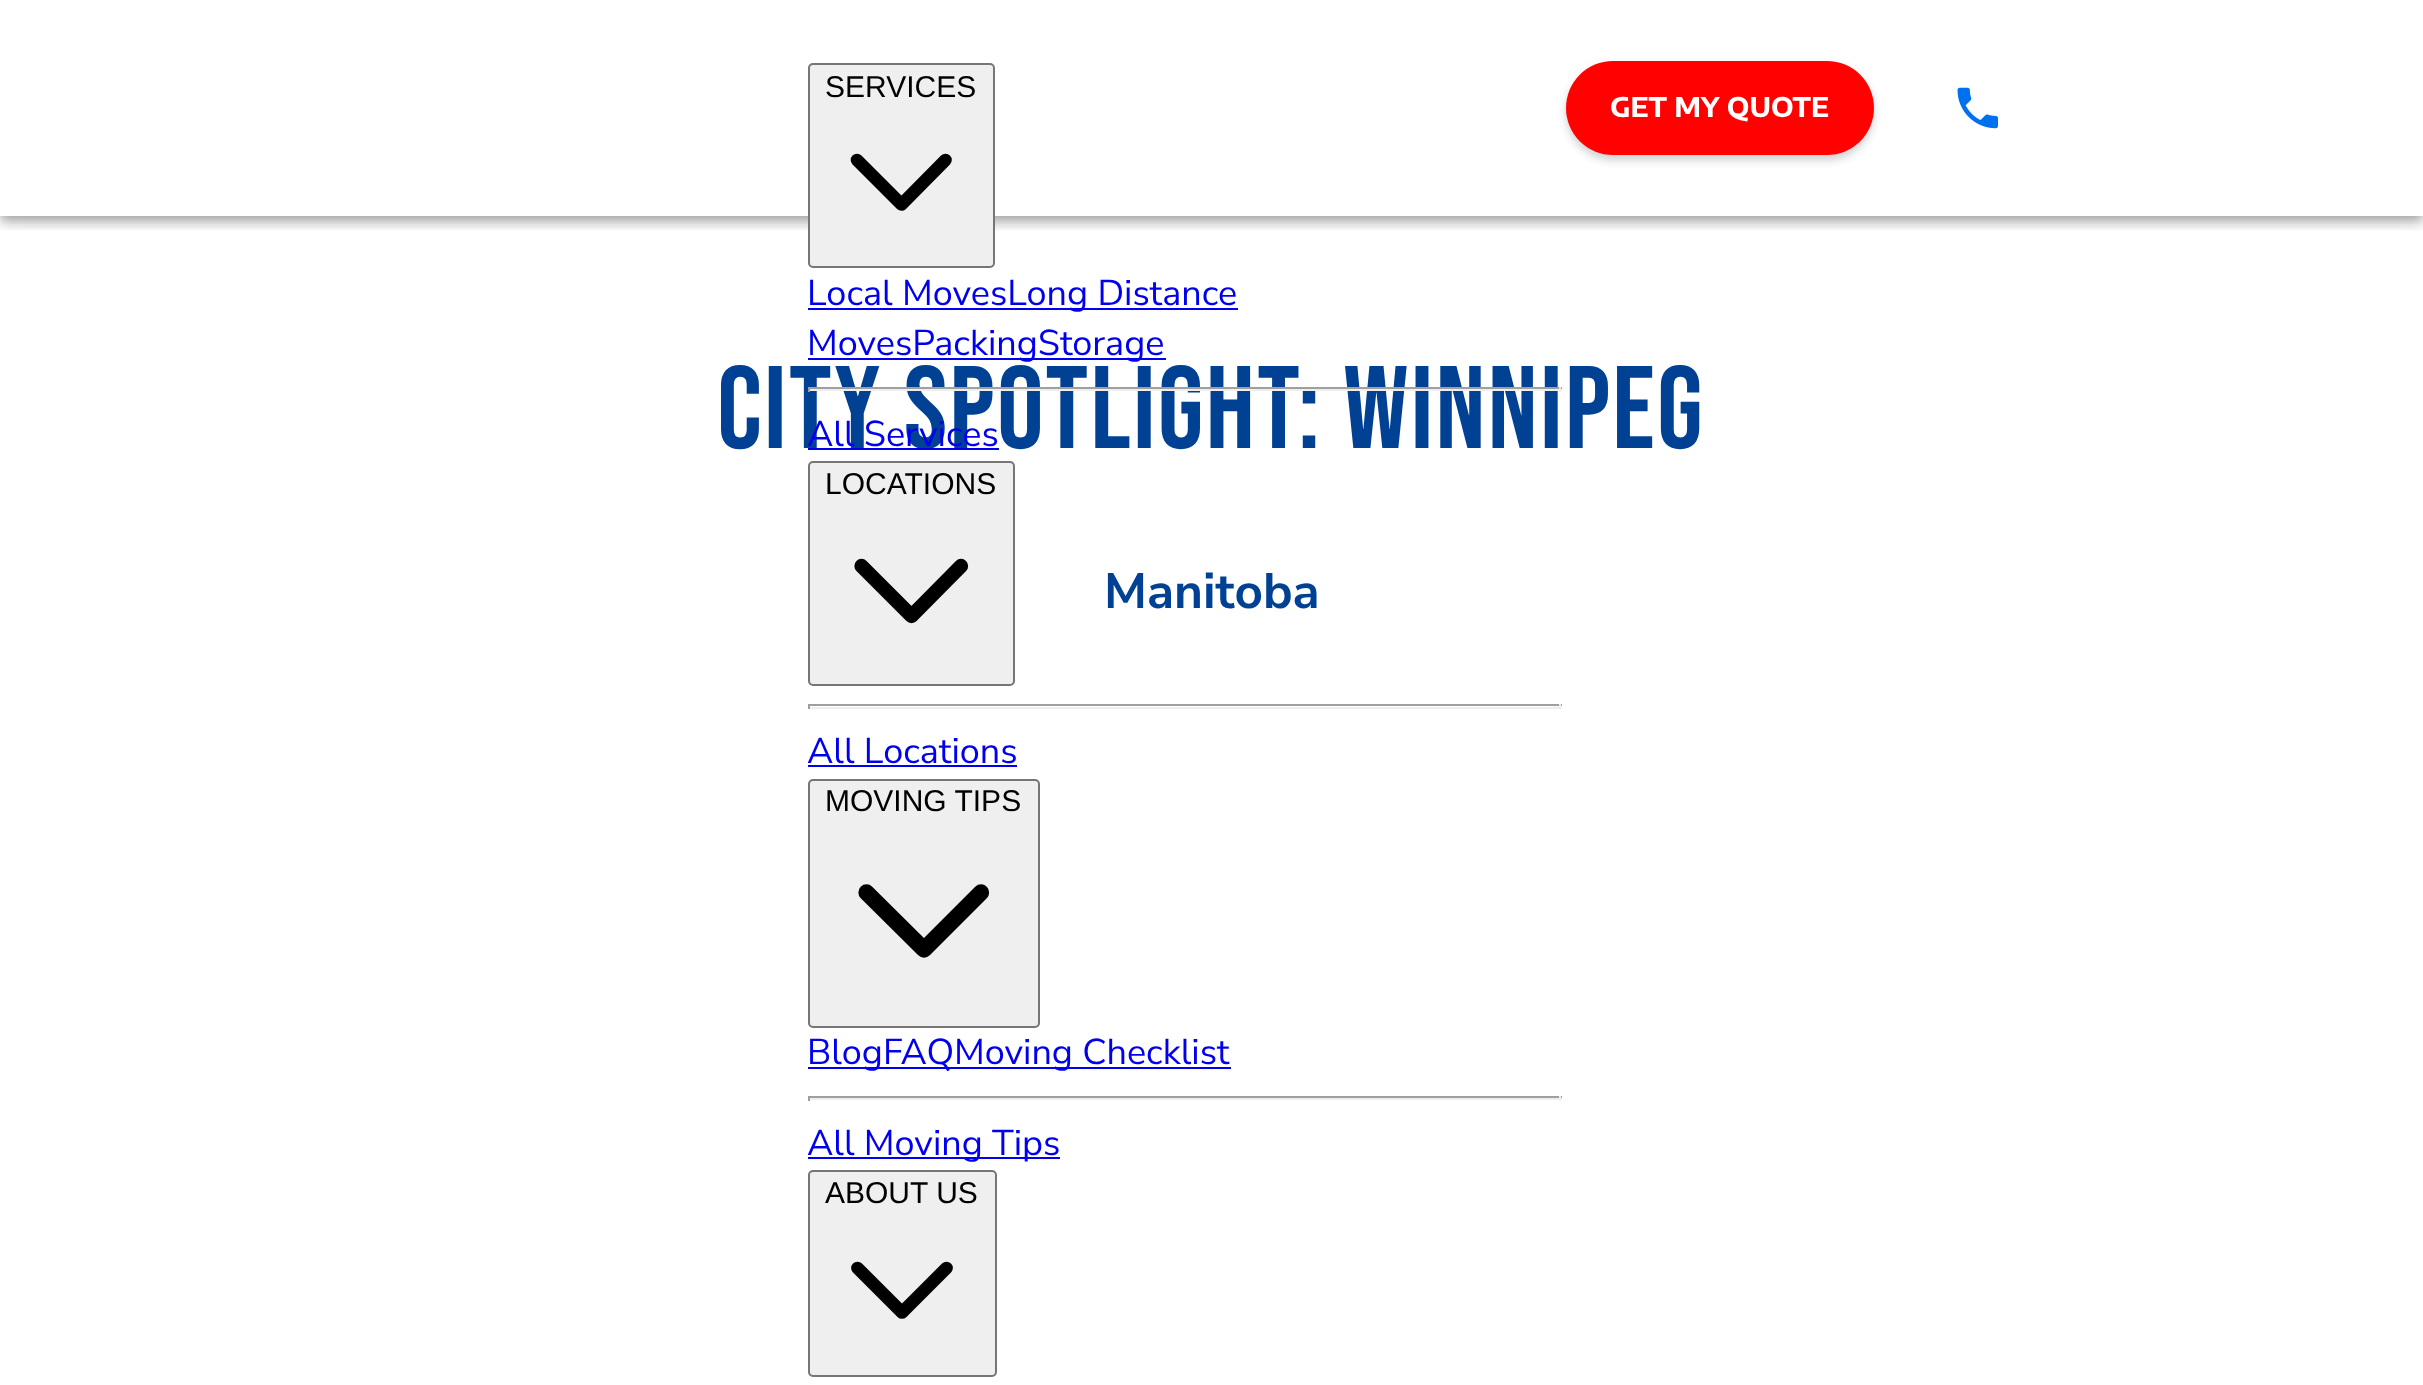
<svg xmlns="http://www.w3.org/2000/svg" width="2423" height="1385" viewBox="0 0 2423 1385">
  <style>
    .t1 { font: 30px Liberation Sans; fill: #000; }
    .t2 { font: 36px Nunito Sans; fill: #00e; }
    .t3 { font: 117px Bebas Neue; letter-spacing: 2.3px; fill: #004193; }
    .t4 { font: bold 27px Encode Sans Semi Expanded; fill: #fff; }
    .t5 { font: bold 49.5px Nunito Sans; fill: #004193; }
  </style>
  <defs>
    <clipPath id="clip1"><rect x="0" y="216" width="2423" height="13"/></clipPath>
    <clipPath id="clip2"><rect x="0" y="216" width="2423" height="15"/></clipPath>
    <clipPath id="clip3"><rect x="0" y="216" width="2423" height="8"/></clipPath>
  </defs>
  <rect width="100%" height="100%" fill="#fff"/>
  <g clip-path="url(#clip1)">
    <rect x="0" y="2" width="2423" height="216" fill="#0000001f" filter="blur(11px)"/>
  </g>
  <g clip-path="url(#clip2)">
    <rect x="0" y="9" width="2423" height="216" fill="#00000024" filter="blur(5.5px)"/>
  </g>
  <g clip-path="url(#clip3)">
    <rect x="2" y="7" width="2419" height="211" fill="#00000033" filter="blur(4.5px)"/>
  </g>
  <rect x="809" y="64" width="185" height="203" rx="4" fill="#efefef" stroke="#767676" stroke-width="2"/>
  <text x="825" y="97" class="t1">SERVICES</text>
  <path d="M945.5 160L901.5 204.5L857 160" fill="none" stroke="#000" stroke-width="12.6" stroke-linecap="round" stroke-linejoin="round"/>
  <rect x="808" y="308" width="430" height="2" fill="#00e"/>
  <text x="807" y="305" class="t2">Local MovesLong Distance</text>
  <rect x="808" y="358" width="358" height="2" fill="#00e"/>
  <text x="807" y="355" class="t2">MovesPackingStorage</text>
  <text x="717" y="448" class="t3">CITY SPOTLIGHT: WINNIPEG</text>
  <rect x="808" y="387" width="754" height="2" fill="#9f9f9f"/>
  <rect x="1559" y="387" width="2" height="5" fill="#eee"/>
  <rect x="808" y="389" width="754" height="2" fill="#eee"/>
  <rect x="808" y="387" width="2" height="5" fill="#9f9f9f"/>
  <text x="807" y="446" class="t2">All Services</text>
  <rect x="808" y="448" width="191" height="2" fill="#00e"/>
  <rect x="809" y="462" width="205" height="223" rx="4" fill="#efefef" stroke="#767676" stroke-width="2"/>
  <text x="825" y="494" class="t1">LOCATIONS</text>
  <path d="M961 566L911.5 616L861.5 566" fill="none" stroke="#000" stroke-width="14.3" stroke-linecap="round" stroke-linejoin="round"/>
  <rect x="808" y="704" width="754" height="2" fill="#9f9f9f"/>
  <rect x="1559" y="704" width="2" height="5" fill="#eee"/>
  <rect x="808" y="707" width="754" height="2" fill="#eee"/>
  <rect x="808" y="704" width="2" height="5" fill="#9f9f9f"/>
  <text x="807" y="763" class="t2">All Locations</text>
  <rect x="808" y="765" width="209" height="2" fill="#00e"/>
  <rect x="809" y="780" width="230" height="247" rx="4" fill="#efefef" stroke="#767676" stroke-width="2"/>
  <text x="825" y="811" class="t1">MOVING TIPS</text>
  <path d="M981 892.5L924 949.5L866.5 892.5" fill="none" stroke="#000" stroke-width="16.3" stroke-linecap="round" stroke-linejoin="round"/>
  <rect x="808" y="1067" width="423" height="2" fill="#00e"/>
  <text x="807" y="1064" class="t2">BlogFAQMoving Checklist</text>
  <rect x="808" y="1096" width="754" height="2" fill="#9f9f9f"/>
  <rect x="1559" y="1096" width="2" height="5" fill="#eee"/>
  <rect x="808" y="1098" width="754" height="2" fill="#eee"/>
  <rect x="808" y="1096" width="2" height="5" fill="#9f9f9f"/>
  <rect x="808" y="1157" width="252" height="2" fill="#00e"/>
  <text x="807" y="1155" class="t2">All Moving Tips</text>
  <rect x="809" y="1171" width="187" height="205" rx="4" fill="#efefef" stroke="#767676" stroke-width="2"/>
  <text x="825" y="1203" class="t1">ABOUT US</text>
  <path d="M946.5 1268L902 1312.5L857.5 1268" fill="none" stroke="#000" stroke-width="12.7" stroke-linecap="round" stroke-linejoin="round"/>
  <rect x="1566" y="65" width="308" height="95" rx="47.5" fill="#05132033" filter="blur(4.5px)"/>
  <rect x="1566" y="61" width="308" height="94" rx="47" fill="#ff0200"/>
  <text x="1610" y="117" class="t4">GET MY QUOTE</text>
  <image x="1957" y="87" width="41" height="42" href="images/1.png"/>
  <text x="1104" y="608" class="t5">Manitoba</text>
</svg>
